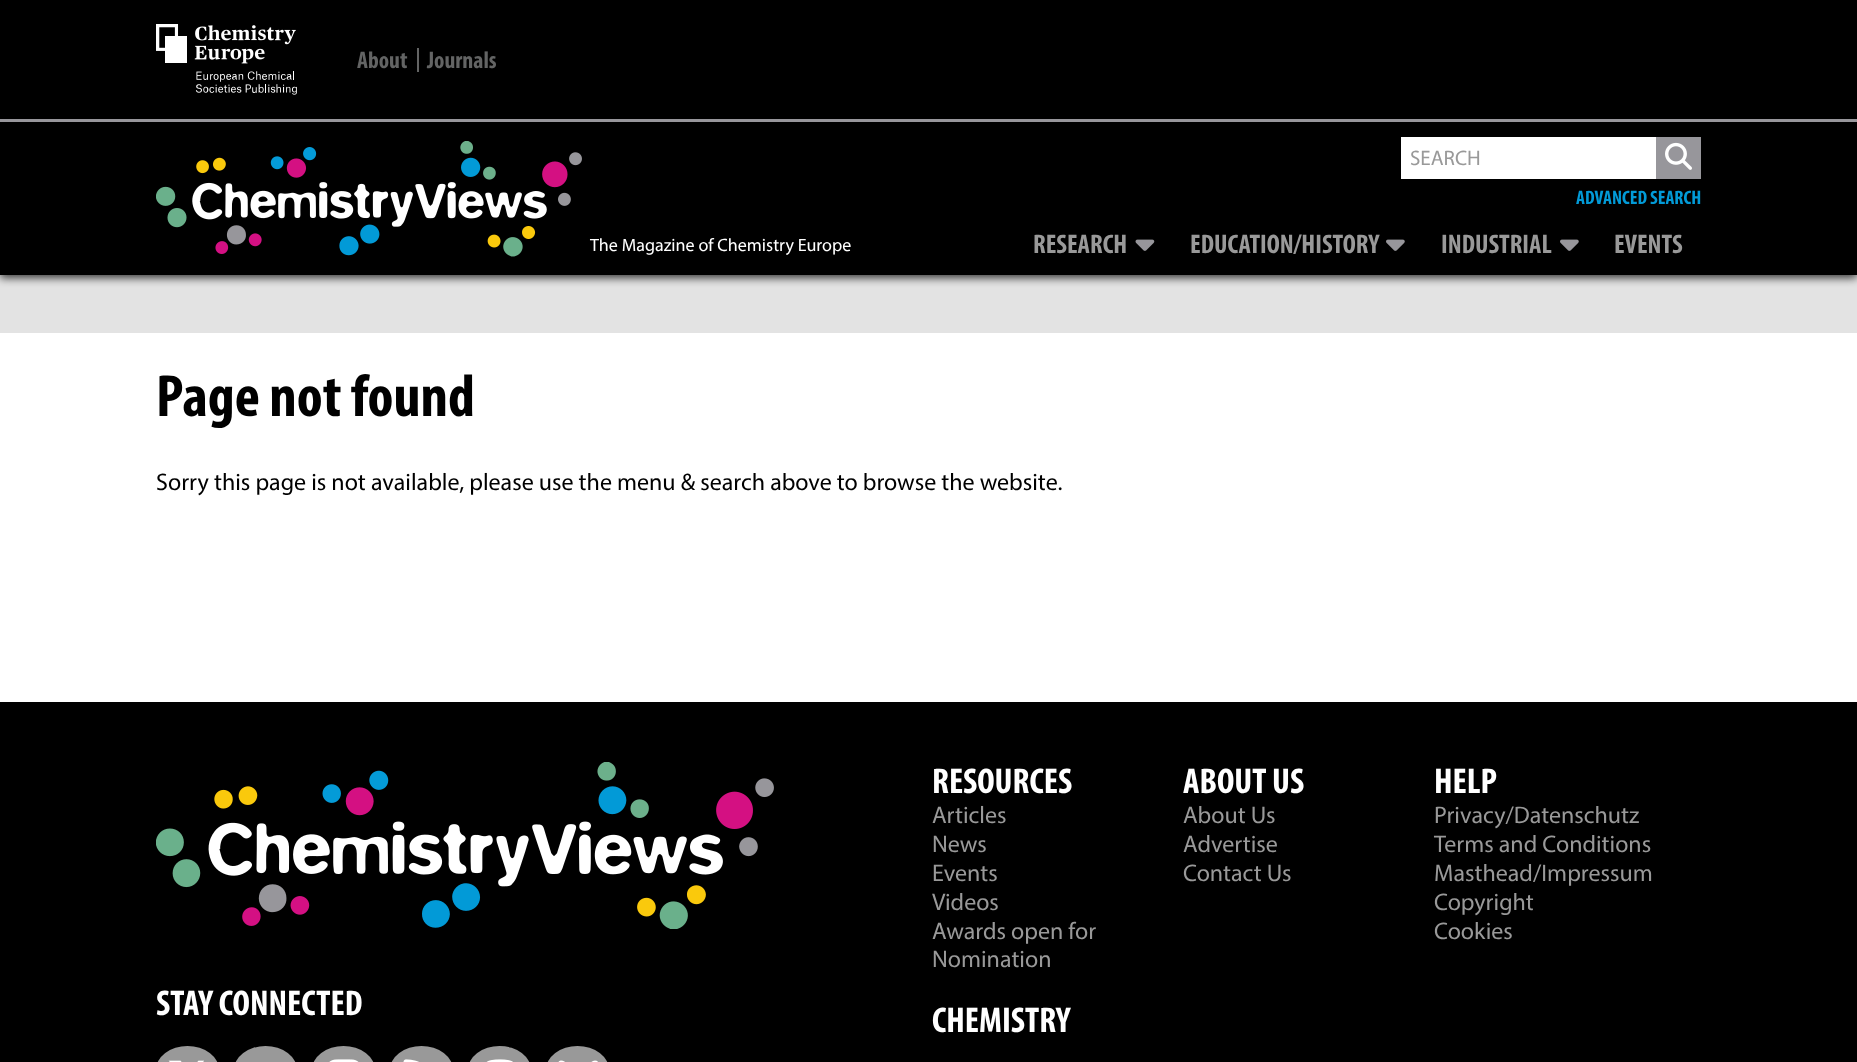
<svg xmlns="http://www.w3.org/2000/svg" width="1857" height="1062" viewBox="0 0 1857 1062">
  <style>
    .t1 { font: bold 24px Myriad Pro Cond; fill: #636464; }
    .t2 { font: 18px Myriad; fill: #fff; }
    .t3 { font: 21px Myriad; fill: #999; }
    .t4 { font: bold 19.5px Myriad Pro Cond; fill: #029ad7; }
    .t5 { font: bold 27px Myriad Pro Cond; fill: #999; }
    .t6 { font: bold 60px Myriad Pro Cond; fill: #000; }
    .t7 { font: 24px Myriad; fill: #000; }
    .t8 { font: bold 36px Myriad Pro Cond; fill: #fff; }
    .t9 { font: 24px Myriad; fill: #999; }
  </style>
  <rect width="100%" height="100%" fill="#fff"/>
  <rect x="0" y="275" width="1857" height="58" fill="#e3e3e3"/>
  <rect x="0" y="3" width="1857" height="275" fill="#000000bf" filter="blur(4px)"/>
  <rect x="0" y="0" width="1857" height="275" fill="#000"/>
  <rect x="0" y="119" width="1857" height="3" fill="#97969b"/>
  <image x="156" y="24" width="141" height="71" href="images/1.png"/>
  <rect x="417" y="48" width="2" height="24" fill="#636464"/>
  <text x="357" y="68" class="t1">About</text>
  <text x="427" y="68" class="t1">Journals</text>
  <image x="156" y="141" width="426" height="116" href="images/2.png"/>
  <text x="590" y="251" class="t2">The Magazine of Chemistry Europe</text>
  <rect x="1401" y="137" width="255" height="42" fill="#fff"/>
  <text x="1410" y="165" class="t3">SEARCH</text>
  <rect x="1656" y="137" width="45" height="42" fill="#97969b"/>
  <image x="1665" y="142" width="27" height="28" href="images/3.png"/>
  <text x="1576" y="204" class="t4">ADVANCED SEARCH</text>
  <text x="1033" y="253" class="t5">RESEARCH</text>
  <image x="1135" y="239" width="20" height="12" href="images/4.png"/>
  <text x="1190" y="253" class="t5">EDUCATION/HISTORY</text>
  <image x="1386" y="239" width="19" height="12" href="images/5.png"/>
  <text x="1441" y="253" class="t5">INDUSTRIAL</text>
  <image x="1560" y="239" width="19" height="12" href="images/5.png"/>
  <text x="1614" y="253" class="t5">EVENTS</text>
  <text x="156" y="416" class="t6">Page not found</text>
  <text x="156" y="490" class="t7">Sorry this page is not available, please use the menu &amp; search above to browse the website.</text>
  <rect x="0" y="702" width="1857" height="360" fill="#000"/>
  <image x="156" y="762" width="618" height="167" href="images/6.png"/>
  <text x="156" y="1015" class="t8">STAY CONNECTED</text>
  <rect x="156" y="1046" width="63" height="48" rx="31.5" fill="#999"/>
  <image x="168" y="1060" width="36" height="2" href="images/7.png"/>
  <rect x="234" y="1046" width="63" height="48" rx="31.5" fill="#999"/>
  <rect x="312" y="1046" width="63" height="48" rx="31.5" fill="#999"/>
  <image x="329" y="1059" width="30" height="3" href="images/8.png"/>
  <rect x="390" y="1046" width="63" height="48" rx="31.5" fill="#999"/>
  <image x="403" y="1059" width="16" height="3" href="images/9.png"/>
  <rect x="468" y="1046" width="63" height="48" rx="31.5" fill="#999"/>
  <image x="486" y="1059" width="27" height="3" href="images/10.png"/>
  <rect x="546" y="1046" width="63" height="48" rx="31.5" fill="#999"/>
  <image x="558" y="1060" width="40" height="2" href="images/11.png"/>
  <text x="932" y="793" class="t8">RESOURCES</text>
  <text x="932" y="823" class="t9">Articles</text>
  <text x="932" y="852" class="t9">News</text>
  <text x="932" y="881" class="t9">Events</text>
  <text x="932" y="910" class="t9">Videos</text>
  <text x="932" y="939" class="t9">Awards open for</text>
  <text x="932" y="967" class="t9">Nomination</text>
  <text x="1183" y="793" class="t8">ABOUT US</text>
  <text x="1183" y="823" class="t9">About Us</text>
  <text x="1183" y="852" class="t9">Advertise</text>
  <text x="1183" y="881" class="t9">Contact Us</text>
  <text x="1434" y="793" class="t8">HELP</text>
  <text x="1434" y="823" class="t9">Privacy/Datenschutz</text>
  <text x="1434" y="852" class="t9">Terms and Conditions</text>
  <text x="1434" y="881" class="t9">Masthead/Impressum</text>
  <text x="1434" y="910" class="t9">Copyright</text>
  <text x="1434" y="939" class="t9">Cookies</text>
  <text x="932" y="1032" class="t8">CHEMISTRY</text>
</svg>
